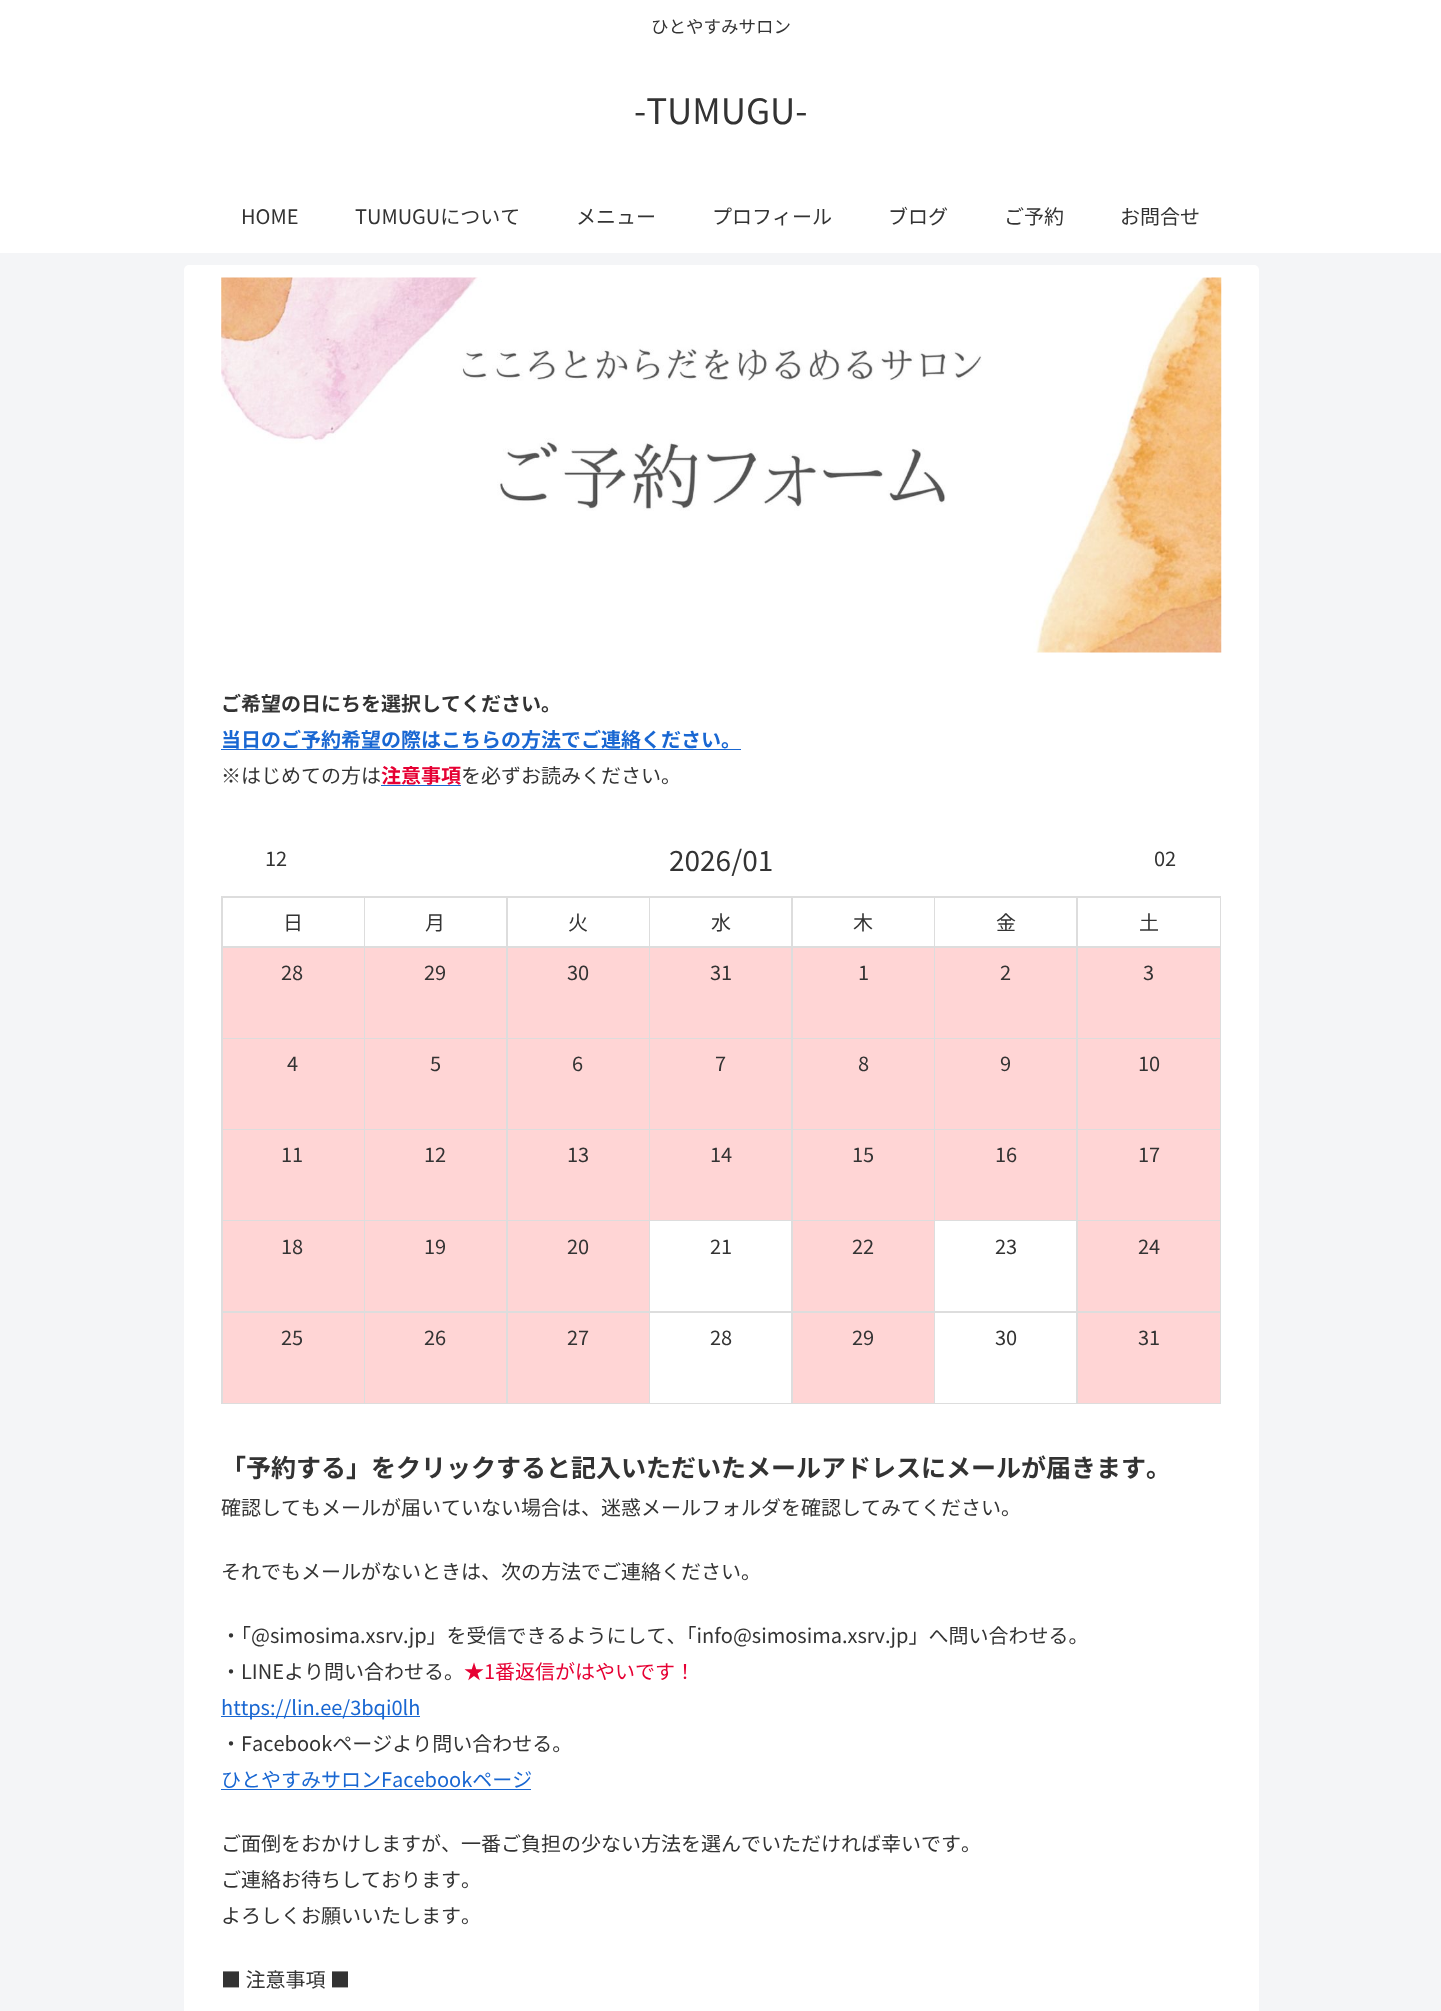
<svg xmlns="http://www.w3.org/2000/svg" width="1441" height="2011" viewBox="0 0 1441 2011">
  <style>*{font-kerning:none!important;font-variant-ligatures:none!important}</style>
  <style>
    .t1 { font: 17.5px Noto Sans JP; fill: #333; }
    .t2 { font: 35px Noto Sans JP; fill: #333; }
    .t3 { font: 20px Noto Sans JP; fill: #333; }
    .t4 { font: bold 20px Noto Sans JP; fill: #333; }
    .t5 { font: bold 20px Noto Sans JP; fill: #1967d2; }
    .t6 { font: bold 20px Noto Sans JP; fill: #e60033; }
    .t7 { font: 28px Noto Sans JP; fill: #333; }
    .t8 { font: bold 25px Noto Sans JP; fill: #333; }
    .t9 { font: 20px Noto Sans JP; fill: #e60033; }
    .t10 { font: 20px Noto Sans JP; fill: #1967d2; }
  </style>
  <rect width="100%" height="100%" fill="#f4f5f7"/>
  <rect x="0" y="0" width="1441" height="253" fill="#fff"/>
  <text x="651" y="33" class="t1">ひとやすみサロン</text>
  <text x="634" y="124" class="t2">-TUMUGU-</text>
  <text x="241" y="224" class="t3">HOME</text>
  <text x="355" y="224" class="t3">TUMUGUについて</text>
  <text x="576" y="224" class="t3">メニュー</text>
  <text x="712" y="224" class="t3">プロフィール</text>
  <text x="888" y="224" class="t3">ブログ</text>
  <text x="1004" y="224" class="t3">ご予約</text>
  <text x="1120" y="224" class="t3">お問合せ</text>
  <rect x="184" y="265" width="1075" height="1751" rx="5" fill="#fff"/>
  <image x="221" y="277" width="1001" height="376" href="images/1.png"/>
  <text x="221" y="711" class="t4">ご希望の日にちを選択してください。</text>
  <text x="221" y="747" class="t5">当日のご予約希望の際はこちらの方法でご連絡ください。</text>
  <rect x="221" y="749" width="520" height="1" fill="#1967d2"/>
  <text x="221" y="783" class="t3">※はじめての方は</text>
  <text x="381" y="783" class="t6">注意事項</text>
  <rect x="381" y="785" width="80" height="1" fill="#1967d2"/>
  <text x="461" y="783" class="t3">を必ずお読みください。</text>
  <text x="265" y="866" class="t3">12</text>
  <text x="669" y="871" class="t7">2026/01</text>
  <text x="1154" y="866" class="t3">02</text>
  <rect x="221" y="896" width="1000" height="508" fill="#ddd"/>
  <rect x="223" y="898" width="141" height="48" fill="#fff"/>
  <text x="283" y="930" class="t3">日</text>
  <rect x="365" y="898" width="141" height="48" fill="#fff"/>
  <text x="425" y="930" class="t3">月</text>
  <rect x="508" y="898" width="141" height="48" fill="#fff"/>
  <text x="568" y="930" class="t3">火</text>
  <rect x="650" y="898" width="141" height="48" fill="#fff"/>
  <text x="711" y="930" class="t3">水</text>
  <rect x="793" y="898" width="141" height="48" fill="#fff"/>
  <text x="853" y="930" class="t3">木</text>
  <rect x="935" y="898" width="141" height="48" fill="#fff"/>
  <text x="996" y="930" class="t3">金</text>
  <rect x="1078" y="898" width="142" height="48" fill="#fff"/>
  <text x="1139" y="930" class="t3">土</text>
  <rect x="223" y="948" width="141" height="90" fill="#ffd5d5"/>
  <text x="281" y="980" class="t3">28</text>
  <rect x="365" y="948" width="141" height="90" fill="#ffd5d5"/>
  <text x="424" y="980" class="t3">29</text>
  <rect x="508" y="948" width="141" height="90" fill="#ffd5d5"/>
  <text x="567" y="980" class="t3">30</text>
  <rect x="650" y="948" width="141" height="90" fill="#ffd5d5"/>
  <text x="710" y="980" class="t3">31</text>
  <rect x="793" y="948" width="141" height="90" fill="#ffd5d5"/>
  <text x="858" y="980" class="t3">1</text>
  <rect x="935" y="948" width="141" height="90" fill="#ffd5d5"/>
  <text x="1000" y="980" class="t3">2</text>
  <rect x="1078" y="948" width="142" height="90" fill="#ffd5d5"/>
  <text x="1143" y="980" class="t3">3</text>
  <rect x="223" y="1039" width="141" height="90" fill="#ffd5d5"/>
  <text x="287" y="1071" class="t3">4</text>
  <rect x="365" y="1039" width="141" height="90" fill="#ffd5d5"/>
  <text x="430" y="1071" class="t3">5</text>
  <rect x="508" y="1039" width="141" height="90" fill="#ffd5d5"/>
  <text x="572" y="1071" class="t3">6</text>
  <rect x="650" y="1039" width="141" height="90" fill="#ffd5d5"/>
  <text x="715" y="1071" class="t3">7</text>
  <rect x="793" y="1039" width="141" height="90" fill="#ffd5d5"/>
  <text x="858" y="1071" class="t3">8</text>
  <rect x="935" y="1039" width="141" height="90" fill="#ffd5d5"/>
  <text x="1000" y="1071" class="t3">9</text>
  <rect x="1078" y="1039" width="142" height="90" fill="#ffd5d5"/>
  <text x="1138" y="1071" class="t3">10</text>
  <rect x="223" y="1130" width="141" height="90" fill="#ffd5d5"/>
  <text x="281" y="1162" class="t3">11</text>
  <rect x="365" y="1130" width="141" height="90" fill="#ffd5d5"/>
  <text x="424" y="1162" class="t3">12</text>
  <rect x="508" y="1130" width="141" height="90" fill="#ffd5d5"/>
  <text x="567" y="1162" class="t3">13</text>
  <rect x="650" y="1130" width="141" height="90" fill="#ffd5d5"/>
  <text x="710" y="1162" class="t3">14</text>
  <rect x="793" y="1130" width="141" height="90" fill="#ffd5d5"/>
  <text x="852" y="1162" class="t3">15</text>
  <rect x="935" y="1130" width="141" height="90" fill="#ffd5d5"/>
  <text x="995" y="1162" class="t3">16</text>
  <rect x="1078" y="1130" width="142" height="90" fill="#ffd5d5"/>
  <text x="1138" y="1162" class="t3">17</text>
  <rect x="223" y="1221" width="141" height="90" fill="#ffd5d5"/>
  <text x="281" y="1254" class="t3">18</text>
  <rect x="365" y="1221" width="141" height="90" fill="#ffd5d5"/>
  <text x="424" y="1254" class="t3">19</text>
  <rect x="508" y="1221" width="141" height="90" fill="#ffd5d5"/>
  <text x="567" y="1254" class="t3">20</text>
  <rect x="650" y="1221" width="141" height="90" fill="#fff"/>
  <text x="710" y="1254" class="t3">21</text>
  <rect x="793" y="1221" width="141" height="90" fill="#ffd5d5"/>
  <text x="852" y="1254" class="t3">22</text>
  <rect x="935" y="1221" width="141" height="90" fill="#fff"/>
  <text x="995" y="1254" class="t3">23</text>
  <rect x="1078" y="1221" width="142" height="90" fill="#ffd5d5"/>
  <text x="1138" y="1254" class="t3">24</text>
  <rect x="223" y="1313" width="141" height="90" fill="#ffd5d5"/>
  <text x="281" y="1345" class="t3">25</text>
  <rect x="365" y="1313" width="141" height="90" fill="#ffd5d5"/>
  <text x="424" y="1345" class="t3">26</text>
  <rect x="508" y="1313" width="141" height="90" fill="#ffd5d5"/>
  <text x="567" y="1345" class="t3">27</text>
  <rect x="650" y="1313" width="141" height="90" fill="#fff"/>
  <text x="710" y="1345" class="t3">28</text>
  <rect x="793" y="1313" width="141" height="90" fill="#ffd5d5"/>
  <text x="852" y="1345" class="t3">29</text>
  <rect x="935" y="1313" width="141" height="90" fill="#fff"/>
  <text x="995" y="1345" class="t3">30</text>
  <rect x="1078" y="1313" width="142" height="90" fill="#ffd5d5"/>
  <text x="1138" y="1345" class="t3">31</text>
  <text x="221" y="1477" class="t8">「予約する」をクリックすると記入いただいたメールアドレスにメールが届きます。</text>
  <text x="221" y="1515" class="t3">確認してもメールが届いていない場合は、迷惑メールフォルダを確認してみてください。</text>
  <text x="221" y="1579" class="t3">それでもメールがないときは、次の方法でご連絡ください。</text>
  <text x="221" y="1643" class="t3">・「@simosima.xsrv.jp」を受信できるようにして、「info@simosima.xsrv.jp」へ問い合わせる。</text>
  <text x="221" y="1679" class="t3">・LINEより問い合わせる。</text>
  <text x="464" y="1679" class="t9">★1番返信がはやいです！</text>
  <rect x="221" y="1716" width="199" height="1" fill="#1967d2"/>
  <text x="221" y="1715" class="t10">https://lin.ee/3bqi0lh</text>
  <text x="221" y="1751" class="t3">・Facebookページより問い合わせる。</text>
  <text x="221" y="1787" class="t10">ひとやすみサロンFacebookページ</text>
  <rect x="221" y="1789" width="310" height="1" fill="#1967d2"/>
  <text x="221" y="1851" class="t3">ご面倒をおかけしますが、一番ご負担の少ない方法を選んでいただければ幸いです。</text>
  <text x="221" y="1887" class="t3">ご連絡お待ちしております。</text>
  <text x="221" y="1923" class="t3">よろしくお願いいたします。</text>
  <text x="221" y="1987" class="t3">■ 注意事項 ■</text>
</svg>
